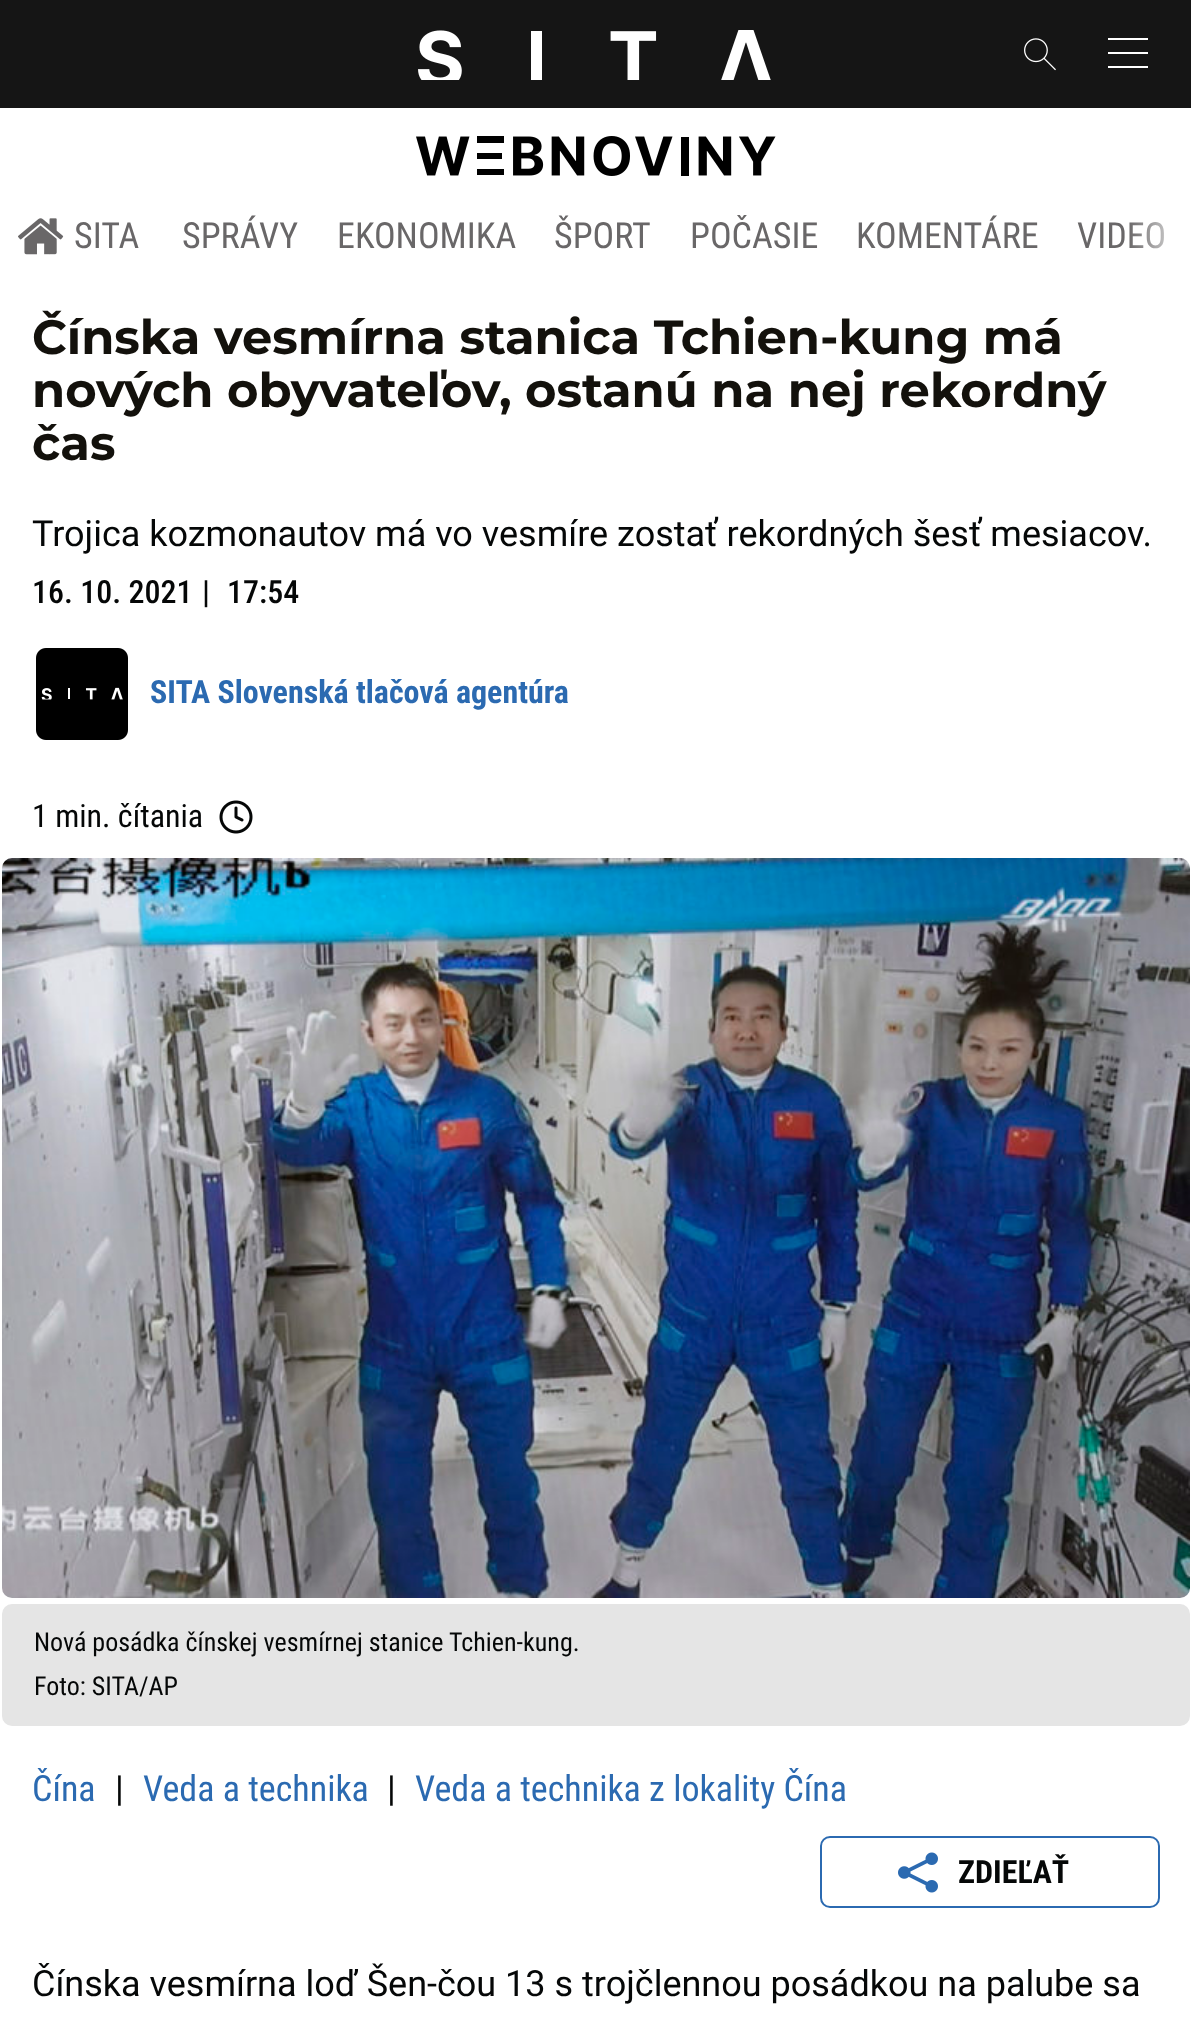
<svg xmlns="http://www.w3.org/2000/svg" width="1191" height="2030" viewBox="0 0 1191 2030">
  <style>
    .t1 { font: 36px Roboto Condensed; fill: #696768; }
    .t2 { font: bold 48px Montserrat; fill: #13110c; }
    .t3 { font: 36px Roboto; fill: #050707; }
    .t4 { font: 500 32px Roboto Condensed; fill: #050707; }
    .t5 { font: bold 32px Roboto Condensed; fill: #2b6ab1; }
    .t6 { font: 32px Roboto Condensed; fill: #050707; }
    .t7 { font: 26px Roboto Condensed; fill: #050707; }
    .t8 { font: 36px Roboto Condensed; fill: #2b6ab1; }
    .t9 { font: 36px Roboto Condensed; fill: #050707; }
    .t10 { font: bold 32px Roboto Condensed; fill: #050707; }
  </style>
  <defs>
    <linearGradient id="g1" gradientUnits="userSpaceOnUse" x1="1128" y1="236" x2="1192" y2="236"><stop offset="0" stop-color="#fff" stop-opacity="0"/><stop offset="1" stop-color="#fff"/></linearGradient>
  </defs>
  <rect width="100%" height="100%" fill="#fff"/>
  <rect x="0" y="0" width="1191" height="108" fill="#151515"/>
  <image x="418" y="30" width="353" height="50" href="images/1.png"/>
  <image x="1024" y="38" width="32" height="33" href="images/2.png"/>
  <rect x="1108" y="38" width="40" height="2" fill="#fff"/>
  <rect x="1108" y="52" width="40" height="2" fill="#fff"/>
  <rect x="1108" y="66" width="40" height="2" fill="#fff"/>
  <image x="416" y="136" width="360" height="40" href="images/3.png"/>
  <image x="18" y="218" width="46" height="37" href="images/4.png"/>
  <text x="74" y="248" class="t1">SITA</text>
  <text x="182" y="248" class="t1">SPRÁVY</text>
  <text x="337" y="248" class="t1">EKONOMIKA</text>
  <text x="554" y="248" class="t1">ŠPORT</text>
  <text x="690" y="248" class="t1">POČASIE</text>
  <text x="856" y="248" class="t1">KOMENTÁRE</text>
  <text x="1077" y="248" class="t1">VIDEO</text>
  <rect x="1130" y="222" width="35" height="27" fill="url(#g1)"/>
  <text x="32" y="354" class="t2">Čínska vesmírna stanica Tchien-kung má</text>
  <text x="32" y="407" class="t2">nových obyvateľov, ostanú na nej rekordný</text>
  <text x="32" y="460" class="t2">čas</text>
  <text x="32" y="546" class="t3">Trojica kozmonautov má vo vesmíre zostať rekordných šesť mesiacov.</text>
  <text x="32" y="603" class="t4">16. 10. 2021</text>
  <text x="202" y="603" class="t4">|</text>
  <text x="227" y="603" class="t4">17:54</text>
  <image x="36" y="648" width="92" height="92" href="images/5.png"/>
  <text x="150" y="703" class="t5">SITA Slovenská tlačová agentúra</text>
  <text x="32" y="827" class="t6">1 min. čítania</text>
  <image x="219" y="800" width="34" height="34" href="images/6.png"/>
  <image x="2" y="858" width="1188" height="740" href="images/7.png"/>
  <rect x="2" y="1604" width="1188" height="122" rx="10" fill="#e5e5e5"/>
  <text x="34" y="1651" class="t7">Nová posádka čínskej vesmírnej stanice Tchien-kung.</text>
  <text x="34" y="1695" class="t7">Foto: SITA/AP</text>
  <text x="32" y="1801" class="t8">Čína</text>
  <text x="115" y="1801" class="t9">|</text>
  <text x="143" y="1801" class="t8">Veda a technika</text>
  <text x="387" y="1801" class="t9">|</text>
  <text x="415" y="1801" class="t8">Veda a technika z lokality Čína</text>
  <rect x="821" y="1837" width="338" height="70" rx="9" fill="none" stroke="#2b6ab1" stroke-width="2"/>
  <image x="898" y="1852" width="40" height="41" href="images/8.png"/>
  <text x="958" y="1883" class="t10">ZDIEĽAŤ</text>
  <text x="32" y="1996" class="t3">Čínska vesmírna loď Šen-čou 13 s trojčlennou posádkou na palube sa</text>
</svg>
